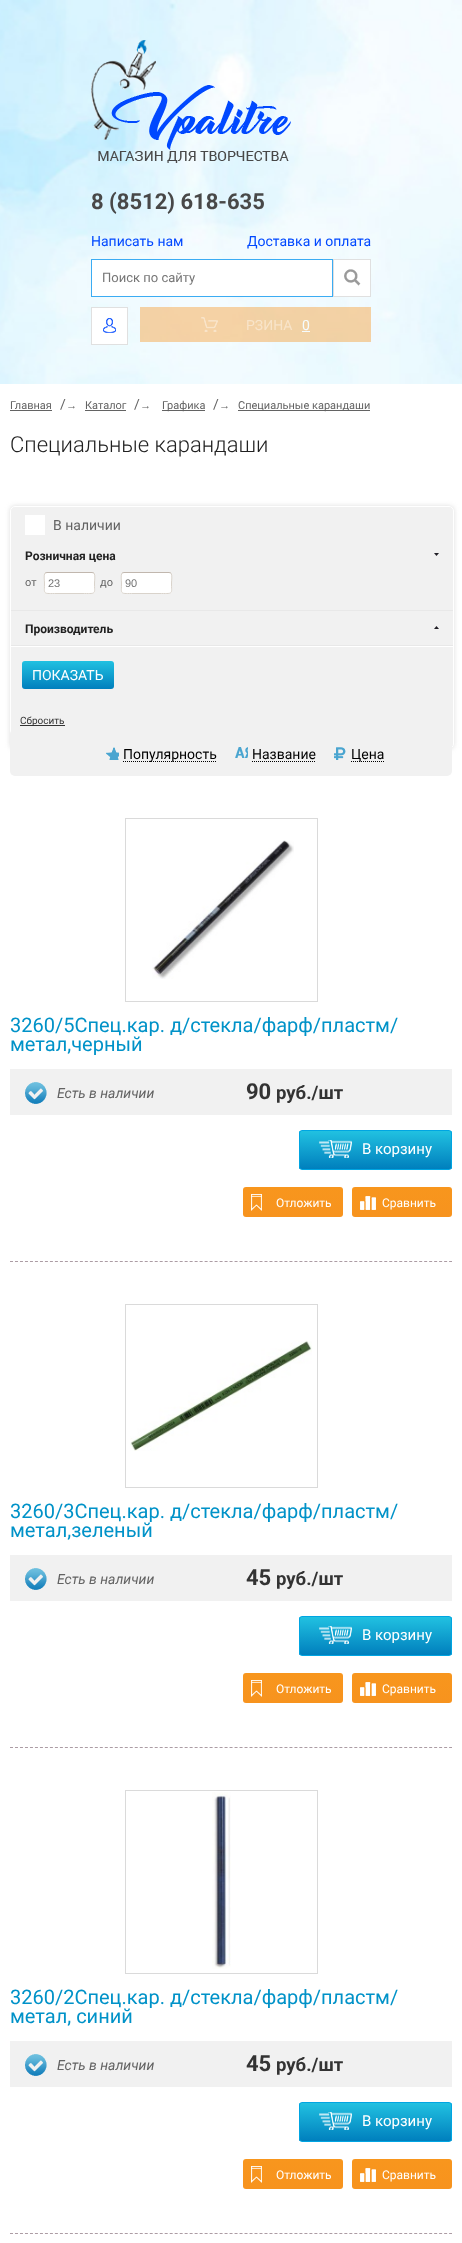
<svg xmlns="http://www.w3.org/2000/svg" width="462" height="2243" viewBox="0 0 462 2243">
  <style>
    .t1 { font: bold 22px Roboto; fill: #484848; }
    .t2 { font: 14px Roboto; fill: #0048ff; }
    .t3 { font: 13px Roboto; fill: #757575; }
    .t4 { font: 14px Roboto; fill: #f8e4c9; }
    .t5 { font: 14px Roboto; fill: #f5fcfe; }
    .t6 { font: 11px Roboto; fill: #636363; }
    .t7 { font: 14px Roboto; fill: #636363; }
    .t8 { font: 11px Liberation Sans; fill: #636363; }
    .t9 { font: 300 22px Roboto; fill: #212121; }
    .t10 { font: bold 12px Roboto; fill: #212121; }
    .t11 { font: 11px Liberation Sans; fill: #757575; }
    .t12 { font: 14px Roboto; fill: #fff; }
    .t13 { font: 10px Roboto; fill: #333; }
    .t14 { font: 14px Roboto; fill: #000; }
    .t15 { font: 20px Roboto; fill: #0092c8; }
    .t16 { font: italic 14px Roboto; fill: #636363; }
    .t17 { font: bold 22px Roboto; fill: #333; }
    .t18 { font: bold 18.5px Roboto; fill: #333; }
    .t19 { font: 15px Roboto; fill: #fff; }
    .t20 { font: 12px Roboto; fill: #fff; }
  </style>
  <defs>
    <linearGradient id="g1" gradientUnits="userSpaceOnUse" x1="68" y1="661" x2="68" y2="689"><stop offset="0" stop-color="#21c1e1"/><stop offset="1" stop-color="#007fbd"/></linearGradient>
    <clipPath id="clip1"><rect x="299" y="1130" width="153" height="40" rx="3"/></clipPath>
    <linearGradient id="g2" gradientUnits="userSpaceOnUse" x1="376" y1="1131" x2="376" y2="1169"><stop offset="0" stop-color="#21c1e1"/><stop offset="1" stop-color="#007fbd"/></linearGradient>
    <linearGradient id="g3" gradientUnits="userSpaceOnUse" x1="293" y1="1187" x2="293" y2="1217"><stop offset="0" stop-color="#f8961d"/><stop offset="1" stop-color="#f7931e"/></linearGradient>
    <linearGradient id="g4" gradientUnits="userSpaceOnUse" x1="402" y1="1187" x2="402" y2="1217"><stop offset="0" stop-color="#f8961d"/><stop offset="1" stop-color="#f7931e"/></linearGradient>
    <clipPath id="clip2"><rect x="299" y="1616" width="153" height="40" rx="3"/></clipPath>
    <linearGradient id="g5" gradientUnits="userSpaceOnUse" x1="376" y1="1617" x2="376" y2="1655"><stop offset="0" stop-color="#21c1e1"/><stop offset="1" stop-color="#007fbd"/></linearGradient>
    <linearGradient id="g6" gradientUnits="userSpaceOnUse" x1="293" y1="1673" x2="293" y2="1703"><stop offset="0" stop-color="#f8961d"/><stop offset="1" stop-color="#f7931e"/></linearGradient>
    <linearGradient id="g7" gradientUnits="userSpaceOnUse" x1="402" y1="1673" x2="402" y2="1703"><stop offset="0" stop-color="#f8961d"/><stop offset="1" stop-color="#f7931e"/></linearGradient>
    <clipPath id="clip3"><rect x="299" y="2102" width="153" height="40" rx="3"/></clipPath>
    <linearGradient id="g8" gradientUnits="userSpaceOnUse" x1="376" y1="2103" x2="376" y2="2141"><stop offset="0" stop-color="#21c1e1"/><stop offset="1" stop-color="#007fbd"/></linearGradient>
    <linearGradient id="g9" gradientUnits="userSpaceOnUse" x1="293" y1="2159" x2="293" y2="2189"><stop offset="0" stop-color="#f8961d"/><stop offset="1" stop-color="#f7931e"/></linearGradient>
    <linearGradient id="g10" gradientUnits="userSpaceOnUse" x1="402" y1="2159" x2="402" y2="2189"><stop offset="0" stop-color="#f8961d"/><stop offset="1" stop-color="#f7931e"/></linearGradient>
  </defs>
  <rect width="100%" height="100%" fill="#fff"/>
  <image x="0" y="0" width="462" height="384" href="images/1.png"/>
  <image x="91" y="40" width="200" height="123" href="images/2.png"/>
  <text x="91" y="209" class="t1">8 (8512) 618-635</text>
  <text x="91" y="246" class="t2">Написать нам</text>
  <text x="247" y="246" class="t2">Доставка и оплата</text>
  <rect x="91.5" y="259.5" width="241" height="37" fill="#fff" stroke="#3bacf3"/>
  <text x="102" y="282" class="t3">Поиск по сайту</text>
  <rect x="333.5" y="259.5" width="37" height="37" fill="#fff" stroke="#e0e0e0"/>
  <image x="344" y="269" width="17" height="17" href="images/3.png"/>
  <rect x="91.5" y="307.5" width="36" height="37" fill="#fff" stroke="#e0e0e0"/>
  <image x="103" y="318" width="13" height="15" href="images/4.png"/>
  <rect x="140" y="307" width="231" height="35" fill="#f7931e66"/>
  <image x="201" y="317" width="17" height="15" href="images/5.png"/>
  <text x="246" y="330" class="t4">РЗИНА</text>
  <text x="302" y="330" class="t5">0</text>
  <rect x="302" y="331" width="8" height="1" fill="#f5fcfe"/>
  <text x="10" y="409" class="t6">Главная</text>
  <rect x="10" y="410" width="42" height="1" fill="#636363"/>
  <text x="60" y="409" class="t7">/</text>
  <text x="66" y="409" class="t8">→</text>
  <text x="85" y="409" class="t6">Каталог</text>
  <rect x="85" y="410" width="41" height="1" fill="#636363"/>
  <text x="134" y="409" class="t7">/</text>
  <text x="140" y="409" class="t8">→</text>
  <rect x="162" y="410" width="43" height="1" fill="#636363"/>
  <text x="162" y="409" class="t6">Графика</text>
  <text x="213" y="409" class="t7">/</text>
  <text x="219" y="409" class="t8">→</text>
  <rect x="238" y="410" width="132" height="1" fill="#636363"/>
  <text x="238" y="409" class="t6">Специальные карандаши</text>
  <text x="10" y="452" class="t9">Специальные карандаши</text>
  <rect x="10" y="506" width="444" height="243" rx="5" fill="#ddd" filter="blur(2.5px)"/>
  <rect x="10.5" y="506.5" width="443" height="242" rx="4.5" fill="#f1f1f1" stroke="#fff"/>
  <rect x="25" y="515" width="20" height="20" fill="#fff"/>
  <text x="53" y="530" class="t7">В наличии</text>
  <rect x="11" y="610" width="442" height="1" fill="#e8e8e8"/>
  <text x="25" y="560" class="t10">Розничная цена</text>
  <image x="434" y="553" width="5" height="3" href="images/6.png"/>
  <text x="25" y="586" class="t6">от</text>
  <rect x="44" y="572" width="51" height="22" rx="3" fill="#fff"/>
  <path d="M45 573L47 572.5H92L94 573" fill="none" stroke="#c1b7ae"/>
  <path d="M94 573C95.5 575 94.5 581 94.5 583C94.5 594.5 96.5 593.5 84.5 593.5H54.5C42.5 593.5 44.5 594.5 44.5 583C44.5 581 43.5 575 45 573" fill="none" stroke="#d9d3cb"/>
  <text x="48" y="587" class="t11">23</text>
  <text x="100" y="586" class="t6">до</text>
  <rect x="121" y="572" width="51" height="22" rx="3" fill="#fff"/>
  <path d="M122 573L124 572.5H169L171 573" fill="none" stroke="#c1b7ae"/>
  <path d="M171 573C172.5 575 171.5 581 171.5 583C171.5 594.5 173.5 593.5 161.5 593.5H131.5C119.5 593.5 121.5 594.5 121.5 583C121.5 581 120.5 575 122 573" fill="none" stroke="#d9d3cb"/>
  <text x="125" y="587" class="t11">90</text>
  <rect x="11" y="645" width="442" height="1" fill="#e8e8e8"/>
  <text x="25" y="633" class="t10">Производитель</text>
  <image x="434" y="626" width="5" height="3" href="images/7.png"/>
  <rect x="11" y="646" width="442" height="1" fill="#fff"/>
  <rect x="22" y="661" width="92" height="28" rx="3" fill="url(#g1)"/>
  <text x="32" y="680" class="t12">ПОКАЗАТЬ</text>
  <rect x="20" y="725" width="45" height="1" fill="#333"/>
  <text x="20" y="724" class="t13">Сбросить</text>
  <rect x="10" y="729" width="442" height="47" rx="5" fill="#f1f1f1"/>
  <image x="106" y="747" width="13" height="13" href="images/8.png"/>
  <path d="M123 761.5H217" fill="none" stroke="#000" stroke-dasharray="1 1"/>
  <text x="123" y="759" class="t14">Популярность</text>
  <image x="235" y="747" width="13" height="11" href="images/9.png"/>
  <path d="M252 761.5H316" fill="none" stroke="#000" stroke-dasharray="1 1"/>
  <text x="252" y="759" class="t14">Название</text>
  <image x="334" y="747" width="12" height="13" href="images/10.png"/>
  <path d="M351 761.5H384" fill="none" stroke="#000" stroke-dasharray="1 1"/>
  <text x="351" y="759" class="t14">Цена</text>
  <path d="M10 1261.5H452" fill="none" stroke="#ac9ca4" stroke-dasharray="3 1.99"/>
  <image x="152" y="840" width="142" height="139" href="images/11.png"/>
  <rect x="125.5" y="818.5" width="192" height="183" fill="none" stroke="#dadada"/>
  <text x="10" y="1032" class="t15">3260/5Спец.кар. д/стекла/фарф/пластм/</text>
  <text x="10" y="1051" class="t15">метал,черный</text>
  <rect x="10" y="1069" width="442" height="46" fill="#f1f1f1"/>
  <image x="25" y="1082" width="22" height="22" href="images/12.png"/>
  <text x="57" y="1098" class="t16">Есть в наличии</text>
  <text x="246" y="1099" class="t17">90</text>
  <text x="276" y="1099" class="t18">руб./шт</text>
  <g clip-path="url(#clip1)">
    <rect x="299" y="1131" width="153" height="38" fill="url(#g2)"/>
  </g>
  <rect x="299.5" y="1130.5" width="152" height="39" rx="2.5" fill="none" stroke="#00a5e2"/>
  <image x="319" y="1140" width="33" height="18" href="images/13.png"/>
  <text x="362" y="1154" class="t19">В корзину</text>
  <rect x="243" y="1187" width="100" height="30" rx="3" fill="url(#g3)"/>
  <image x="251" y="1194" width="11" height="17" href="images/14.png"/>
  <text x="276" y="1207" class="t20">Отложить</text>
  <rect x="352" y="1187" width="100" height="30" rx="3" fill="url(#g4)"/>
  <image x="360" y="1196" width="16" height="14" href="images/15.png"/>
  <text x="382" y="1207" class="t20">Сравнить</text>
  <path d="M10 1747.5H452" fill="none" stroke="#ac9ca4" stroke-dasharray="3 1.99"/>
  <image x="130" y="1340" width="182" height="111" href="images/16.png"/>
  <rect x="125.5" y="1304.5" width="192" height="183" fill="none" stroke="#dadada"/>
  <text x="10" y="1518" class="t15">3260/3Спец.кар. д/стекла/фарф/пластм/</text>
  <text x="10" y="1537" class="t15">метал,зеленый</text>
  <rect x="10" y="1555" width="442" height="46" fill="#f1f1f1"/>
  <image x="25" y="1568" width="22" height="22" href="images/12.png"/>
  <text x="57" y="1584" class="t16">Есть в наличии</text>
  <text x="246" y="1585" class="t17">45</text>
  <text x="276" y="1585" class="t18">руб./шт</text>
  <g clip-path="url(#clip2)">
    <rect x="299" y="1617" width="153" height="38" fill="url(#g5)"/>
  </g>
  <rect x="299.5" y="1616.5" width="152" height="39" rx="2.5" fill="none" stroke="#00a5e2"/>
  <image x="319" y="1626" width="33" height="18" href="images/13.png"/>
  <text x="362" y="1640" class="t19">В корзину</text>
  <rect x="243" y="1673" width="100" height="30" rx="3" fill="url(#g6)"/>
  <image x="251" y="1680" width="11" height="17" href="images/14.png"/>
  <text x="276" y="1693" class="t20">Отложить</text>
  <rect x="352" y="1673" width="100" height="30" rx="3" fill="url(#g7)"/>
  <image x="360" y="1682" width="16" height="14" href="images/15.png"/>
  <text x="382" y="1693" class="t20">Сравнить</text>
  <path d="M10 2233.5H452" fill="none" stroke="#ac9ca4" stroke-dasharray="3 1.99"/>
  <image x="212" y="1792" width="19" height="177" href="images/17.png"/>
  <rect x="125.5" y="1790.5" width="192" height="183" fill="none" stroke="#dadada"/>
  <text x="10" y="2004" class="t15">3260/2Спец.кар. д/стекла/фарф/пластм/</text>
  <text x="10" y="2023" class="t15">метал, синий</text>
  <rect x="10" y="2041" width="442" height="46" fill="#f1f1f1"/>
  <image x="25" y="2054" width="22" height="22" href="images/12.png"/>
  <text x="57" y="2070" class="t16">Есть в наличии</text>
  <text x="246" y="2071" class="t17">45</text>
  <text x="276" y="2071" class="t18">руб./шт</text>
  <g clip-path="url(#clip3)">
    <rect x="299" y="2103" width="153" height="38" fill="url(#g8)"/>
  </g>
  <rect x="299.5" y="2102.5" width="152" height="39" rx="2.5" fill="none" stroke="#00a5e2"/>
  <image x="319" y="2112" width="33" height="18" href="images/13.png"/>
  <text x="362" y="2126" class="t19">В корзину</text>
  <rect x="243" y="2159" width="100" height="30" rx="3" fill="url(#g9)"/>
  <image x="251" y="2166" width="11" height="17" href="images/14.png"/>
  <text x="276" y="2179" class="t20">Отложить</text>
  <rect x="352" y="2159" width="100" height="30" rx="3" fill="url(#g10)"/>
  <image x="360" y="2168" width="16" height="14" href="images/15.png"/>
  <text x="382" y="2179" class="t20">Сравнить</text>
</svg>
